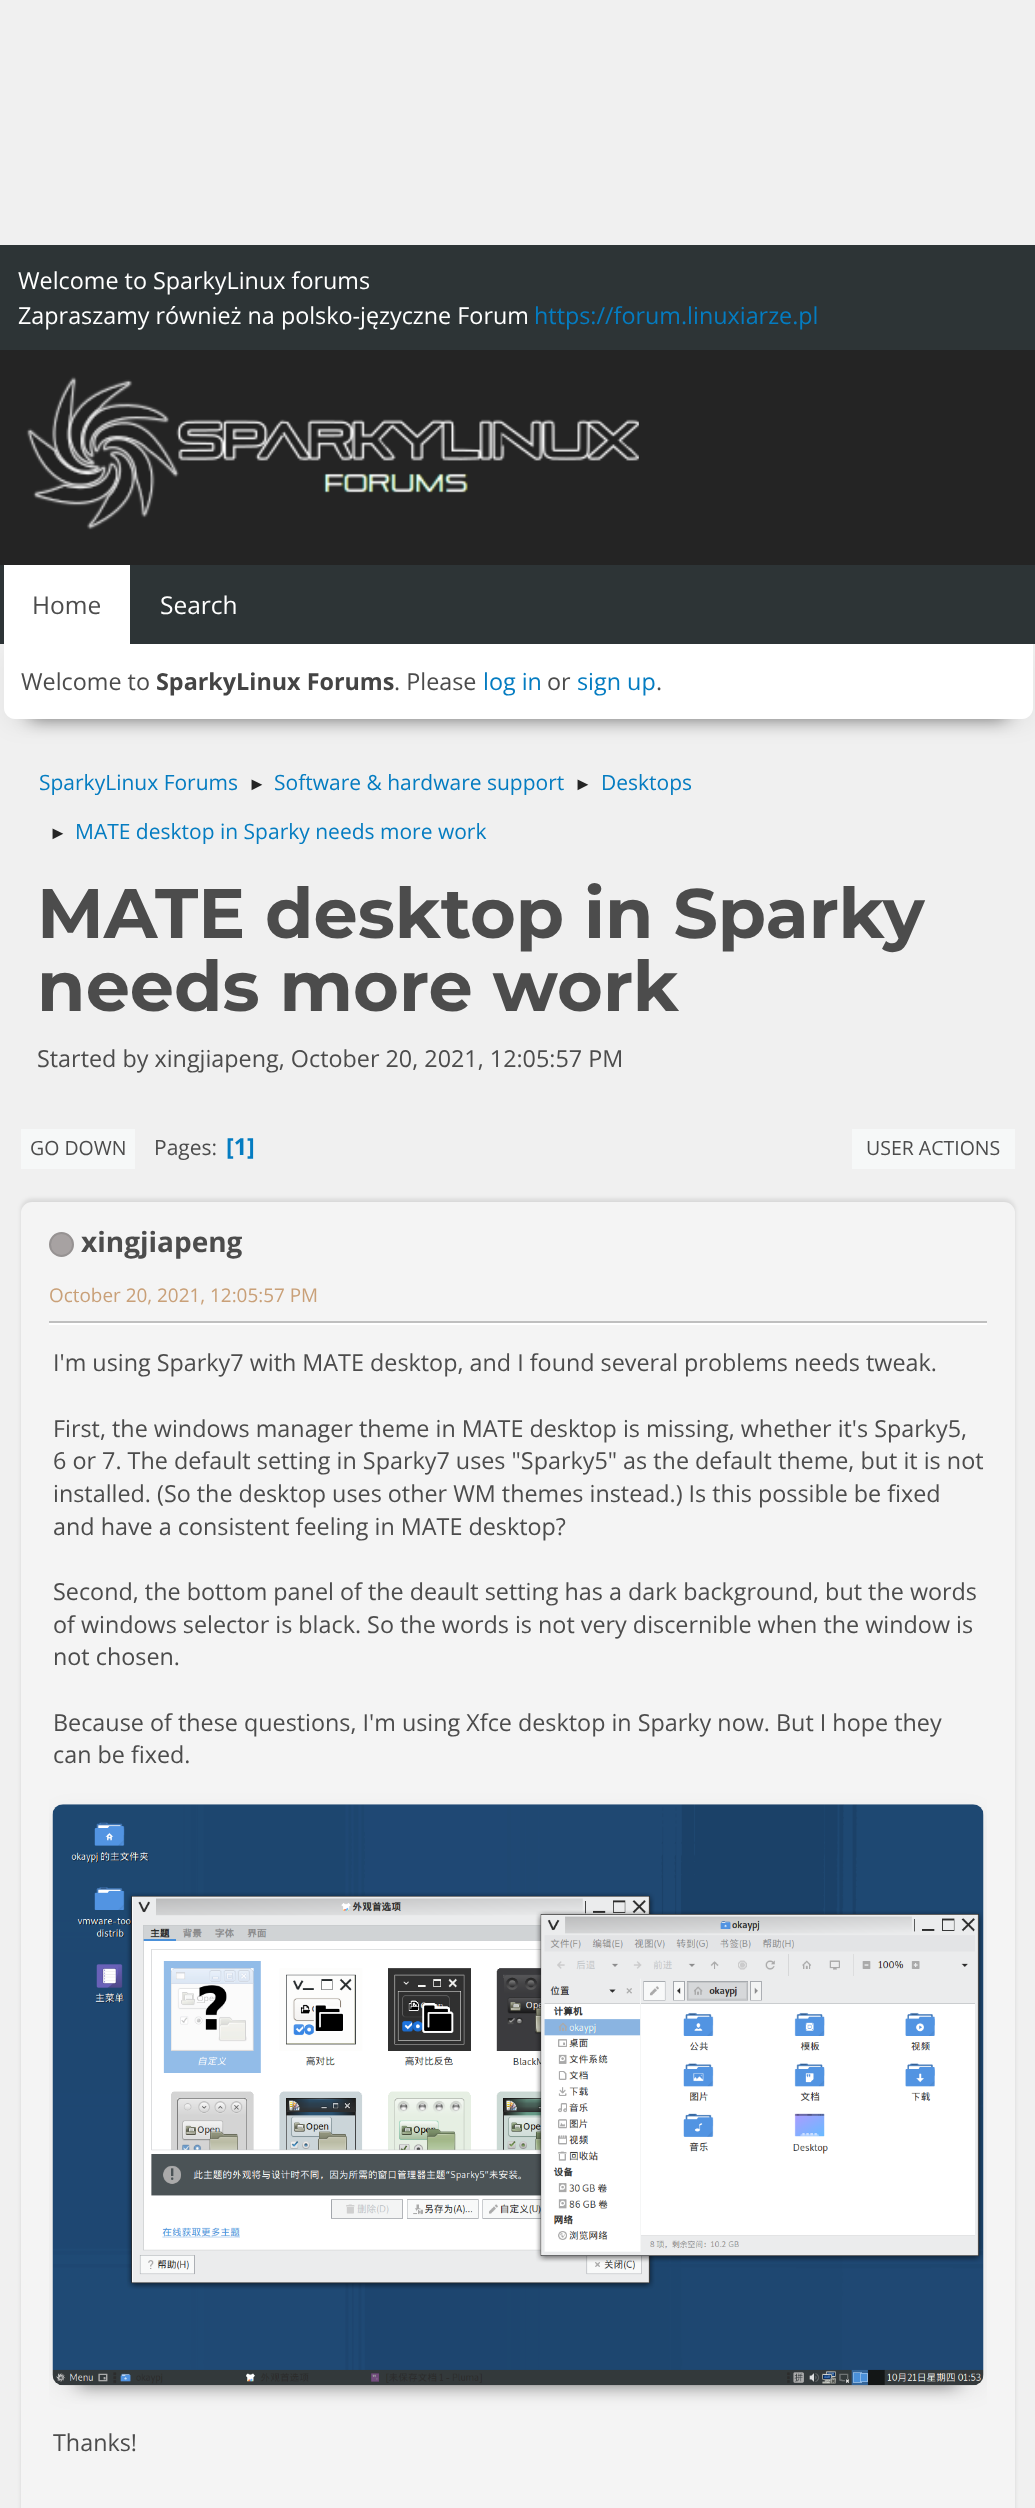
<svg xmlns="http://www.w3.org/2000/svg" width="1035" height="2508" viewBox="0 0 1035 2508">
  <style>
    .t1 { font: 23.35px Open Sans; fill: #fff; }
    .t2 { font: 23.35px Open Sans; fill: #047cc1; }
    .t3 { font: 24.5px Open Sans; fill: #4c4c4c; }
    .t4 { font: 24.5px Open Sans; fill: #fff; }
    .t5 { font: 23.35px Open Sans; fill: #4c4c4c; }
    .t6 { font: bold 23.35px Open Sans; fill: #444; }
    .t7 { font: 21px Open Sans; fill: #047cc1; }
    .t8 { font: 18px Liberation Sans; fill: #242424; }
    .t9 { font: bold 70px Montserrat; fill: #4c4c4c; }
    .t10 { font: 19.5px Open Sans; fill: #4c4c4c; }
    .t11 { font: 21px Open Sans; fill: #4c4c4c; }
    .t12 { font: bold 23.35px Open Sans; fill: #047cc1; }
    .t13 { font: bold 28px Open Sans; fill: #4c4c4c; }
    .t14 { font: 18.9px Open Sans; fill: #c9a078; }
  </style>
  <defs>
    <clipPath id="clip1"><rect x="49" y="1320" width="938" height="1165"/></clipPath>
  </defs>
  <rect width="100%" height="100%" fill="#f0f0f0"/>
  <rect x="0" y="245" width="1035" height="105" fill="#2d3436"/>
  <text x="18" y="289" class="t1">Welcome to SparkyLinux forums</text>
  <text x="18" y="324" class="t1">Zapraszamy również na polsko-języczne Forum</text>
  <text x="534" y="324" class="t2">https://forum.linuxiarze.pl</text>
  <rect x="0" y="350" width="1035" height="215" fill="#242424"/>
  <image x="26" y="376" width="613" height="154" href="images/1.png"/>
  <rect x="4" y="651" width="1029" height="75" rx="11" fill="#0000000d" filter="blur(10.5px)"/>
  <rect x="0" y="565" width="1035" height="79" fill="#2d3436"/>
  <rect x="4" y="565" width="126" height="79" fill="#fff"/>
  <text x="32" y="614" class="t3">Home</text>
  <text x="160" y="614" class="t4">Search</text>
  <rect x="30" y="697" width="976" height="22" fill="#01000080" filter="blur(9px)"/>
  <path d="M4 644H1033V708C1033 714 1028 719 1022 719H15C9 719 4 714 4 708Z" fill="#fff"/>
  <text x="21" y="690" class="t5">Welcome to</text>
  <text x="156" y="690" class="t6">SparkyLinux Forums</text>
  <text x="394" y="690" class="t5">. Please</text>
  <text x="483" y="690" class="t2">log in</text>
  <text x="547" y="690" class="t5">or</text>
  <text x="577" y="690" class="t2">sign up</text>
  <text x="656" y="690" class="t5">.</text>
  <text x="39" y="790" class="t7">SparkyLinux Forums</text>
  <text x="248" y="790" class="t8">►</text>
  <text x="274" y="790" class="t7">Software &amp; hardware support</text>
  <text x="574" y="790" class="t8">►</text>
  <text x="601" y="790" class="t7">Desktops</text>
  <text x="49" y="839" class="t8">►</text>
  <text x="75" y="839" class="t7">MATE desktop in Sparky needs more work</text>
  <text x="37" y="938" class="t9">MATE desktop in Sparky</text>
  <text x="37" y="1011" class="t9">needs more work</text>
  <text x="37" y="1067" class="t5">Started by xingjiapeng, October 20, 2021, 12:05:57 PM</text>
  <rect x="21" y="1129" width="114" height="40" fill="#f6f8f8"/>
  <text x="30" y="1155" class="t10">GO DOWN</text>
  <text x="154" y="1155" class="t11">Pages:</text>
  <text x="226" y="1155" class="t12">[1]</text>
  <rect x="852" y="1129" width="163" height="40" fill="#f6f8f8"/>
  <text x="866" y="1155" class="t10">USER ACTIONS</text>
  <rect x="21" y="1199" width="994" height="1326" rx="11" fill="#0000001a" filter="blur(2px)"/>
  <rect x="21" y="1202" width="994" height="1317" rx="11" fill="#f4f4f4"/>
  <circle cx="61.5" cy="1244.5" r="11.5" fill="#a7a2a2" stroke="#969292" stroke-width="2"/>
  <text x="81" y="1252" class="t13">xingjiapeng</text>
  <text x="49" y="1302" class="t14">October 20, 2021, 12:05:57 PM</text>
  <rect x="49" y="1323" width="938" height="2" fill="#fff"/>
  <rect x="49" y="1321" width="938" height="2" fill="#bfbfbf"/>
  <text x="53" y="1371" class="t5">I'm using Sparky7 with MATE desktop, and I found several problems needs tweak.</text>
  <text x="53" y="1437" class="t5">First, the windows manager theme in MATE desktop is missing, whether it's Sparky5,</text>
  <text x="53" y="1469" class="t5">6 or 7. The default setting in Sparky7 uses "Sparky5" as the default theme, but it is not</text>
  <text x="53" y="1502" class="t5">installed. (So the desktop uses other WM themes instead.) Is this possible be fixed</text>
  <text x="53" y="1535" class="t5">and have a consistent feeling in MATE desktop?</text>
  <text x="53" y="1600" class="t5">Second, the bottom panel of the deault setting has a dark background, but the words</text>
  <text x="53" y="1633" class="t5">of windows selector is black. So the words is not very discernible when the window is</text>
  <text x="53" y="1665" class="t5">not chosen.</text>
  <text x="53" y="1731" class="t5">Because of these questions, I'm using Xfce desktop in Sparky now. But I hope they</text>
  <text x="53" y="1763" class="t5">can be fixed.</text>
  <g clip-path="url(#clip1)">
    <rect x="53" y="1811" width="931" height="581" rx="11" fill="#0000000d" filter="blur(10.5px)"/>
  </g>
  <rect x="79" y="1857" width="878" height="528" fill="#01000080" filter="blur(9px)"/>
  <image x="52" y="1804" width="932" height="582" href="images/2.png"/>
  <text x="53" y="2451" class="t5">Thanks!</text>
</svg>
